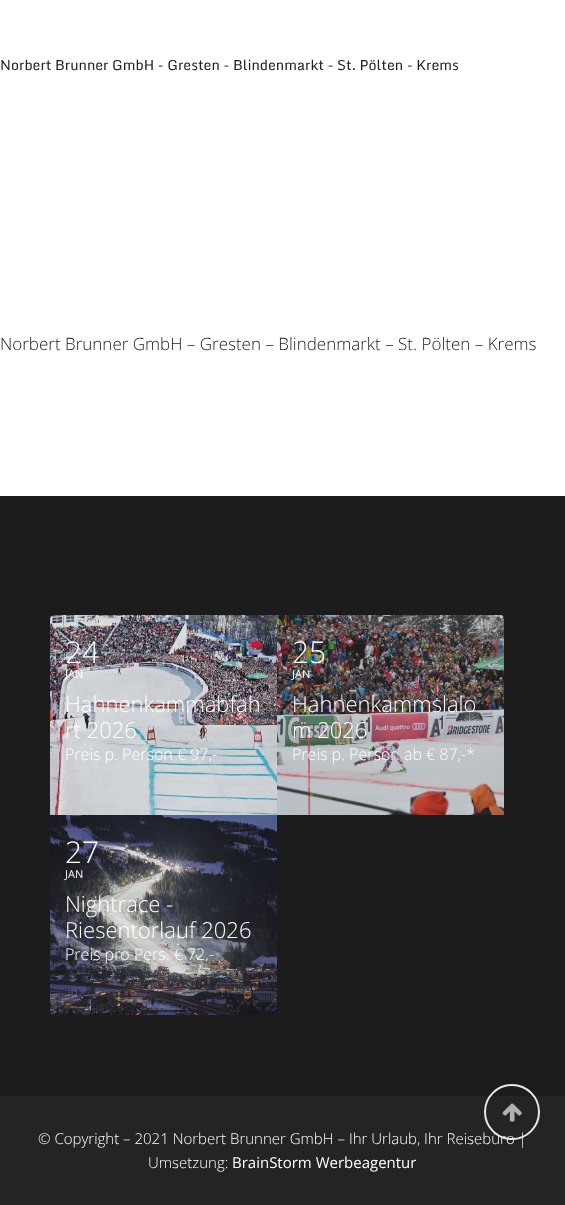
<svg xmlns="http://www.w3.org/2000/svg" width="565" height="1205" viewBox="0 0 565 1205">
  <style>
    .t1 { font: 14px Monda; fill: #222; }
    .t2 { font: 300 17px Open Sans; fill: #1c1c1c; }
    .t3 { font: 300 30px Open Sans; fill: #fff; }
    .t4 { font: 11px Open Sans; fill: #fff; }
    .t5 { font: 300 22px Open Sans; fill: #fff; }
    .t6 { font: 300 16px Open Sans; fill: #fff; }
    .t7 { font: 300 15px Open Sans; fill: #fff; }
    .t8 { font: 15px Open Sans; fill: #fff; }
  </style>
  <rect width="100%" height="100%" fill="#fff"/>
  <text x="0" y="70" class="t1">Norbert Brunner GmbH - Gresten - Blindenmarkt - St. Pölten - Krems</text>
  <text x="0" y="350" class="t2">Norbert Brunner GmbH – Gresten – Blindenmarkt – St. Pölten – Krems</text>
  <rect x="0" y="496" width="565" height="600" fill="#1c1c1c"/>
  <image x="50" y="615" width="227" height="200" href="images/1.png"/>
  <path d="M55 615C52 615 50 617 50 619V815H277V615Z" fill="#5f5f5f33"/>
  <text x="65" y="663" class="t3">24</text>
  <text x="65" y="678" class="t4">JAN</text>
  <text x="65" y="712" class="t5">Hahnenkammabfah</text>
  <text x="65" y="738" class="t5">rt 2026</text>
  <text x="65" y="760" class="t6">Preis p. Person € 97,-</text>
  <image x="277" y="615" width="227" height="200" href="images/2.png"/>
  <path d="M277 615V815H504V619C504 617 502 615 500 615Z" fill="#5f5f5f33"/>
  <text x="292" y="663" class="t3">25</text>
  <text x="292" y="678" class="t4">JAN</text>
  <text x="292" y="712" class="t5">Hahnenkammslalo</text>
  <text x="292" y="738" class="t5">m 2026</text>
  <text x="292" y="760" class="t6">Preis p. Person ab € 87,-*</text>
  <image x="50" y="815" width="227" height="200" href="images/3.png"/>
  <path d="M50 815V1011C50 1013 52 1015 55 1015H277V815Z" fill="#5f5f5f33"/>
  <text x="65" y="863" class="t3">27</text>
  <text x="65" y="878" class="t4">JAN</text>
  <text x="65" y="912" class="t5">Nightrace -</text>
  <text x="65" y="938" class="t5">Riesentorlauf 2026</text>
  <text x="65" y="960" class="t6">Preis pro Pers. € 72,-</text>
  <rect x="0" y="1096" width="565" height="109" fill="#242424"/>
  <text x="38" y="1144" class="t7">© Copyright – 2021 Norbert Brunner GmbH – Ihr Urlaub, Ihr Reisebüro |</text>
  <text x="148" y="1168" class="t7">Umsetzung:</text>
  <text x="232" y="1168" class="t8">BrainStorm Werbeagentur</text>
  <circle cx="512" cy="1112" r="27" fill="none" stroke="#e8e8e8" stroke-width="2"/>
  <image x="502" y="1103" width="20" height="19" href="images/4.png"/>
</svg>
